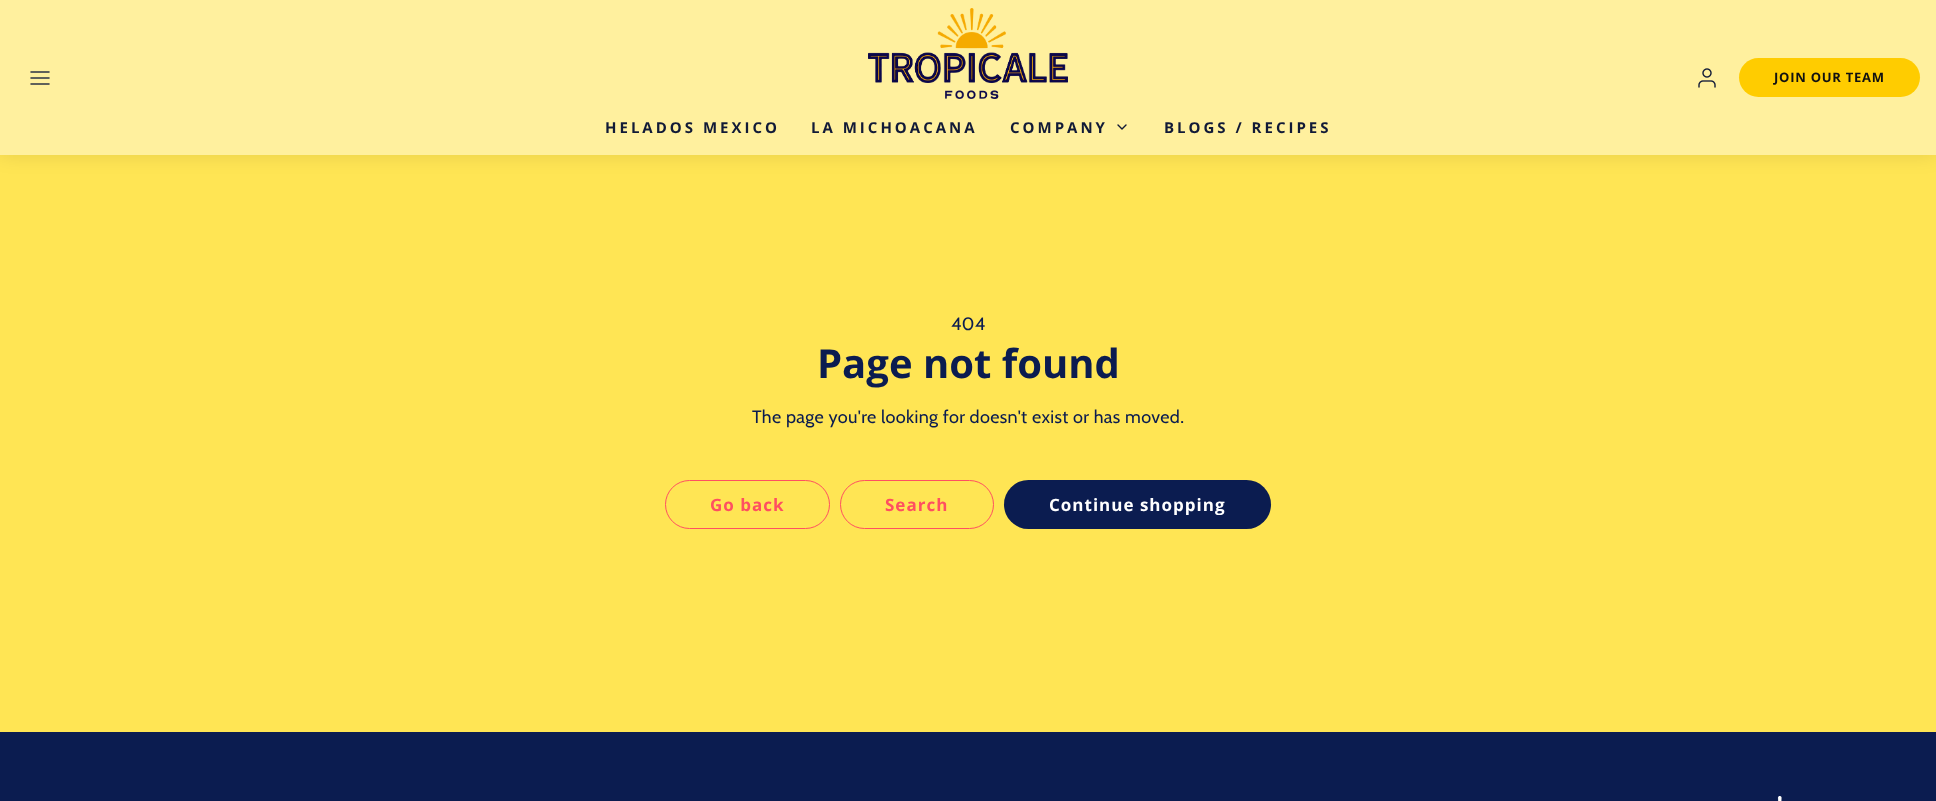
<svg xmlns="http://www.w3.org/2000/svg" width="1936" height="801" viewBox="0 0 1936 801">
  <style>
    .t1 { font: bold 13px Open Sans; letter-spacing: 0.75px; fill: #111; }
    .t2 { font: bold 15px Open Sans; letter-spacing: 3px; fill: #111a37; }
    .t3 { font: 18px Cabin; letter-spacing: 0.35px; fill: #0b1c50; }
    .t4 { font: bold 40px Open Sans; fill: #0b1c50; }
    .t5 { font: bold 17px Open Sans; letter-spacing: 1px; fill: #ff4f61; }
    .t6 { font: bold 17px Open Sans; letter-spacing: 1px; fill: #fff; }
  </style>
  <rect width="100%" height="100%" fill="#ffe554"/>
  <rect x="0" y="0" width="1936" height="155" fill="#0000001a" filter="blur(10px)"/>
  <rect x="0" y="0" width="1936" height="155" fill="#fff09e"/>
  <image x="30" y="71" width="20" height="14" href="images/1.png"/>
  <image x="1698" y="68" width="18" height="20" href="images/2.png"/>
  <rect x="1739" y="58" width="181" height="39" rx="19.5" fill="#fc0"/>
  <text x="1774" y="82" class="t1">JOIN OUR TEAM</text>
  <image x="868" y="8" width="200" height="91" href="images/3.png"/>
  <text x="605" y="133" class="t2">HELADOS MEXICO</text>
  <text x="811" y="133" class="t2">LA MICHOACANA</text>
  <text x="1010" y="133" class="t2">COMPANY</text>
  <path d="M1118 125L1122 129L1126 125" fill="none" stroke="#111a37" stroke-width="1.4" stroke-linecap="round" stroke-linejoin="round"/>
  <text x="1164" y="133" class="t2">BLOGS / RECIPES</text>
  <text x="951" y="330" class="t3">404</text>
  <text x="817" y="378" class="t4">Page not found</text>
  <text x="752" y="423" class="t3">The page you're looking for doesn't exist or has moved.</text>
  <rect x="665.5" y="480.5" width="164" height="48" rx="24" fill="none" stroke="#ff4f61"/>
  <text x="710" y="511" class="t5">Go back</text>
  <rect x="840.5" y="480.5" width="153" height="48" rx="24" fill="none" stroke="#ff4f61"/>
  <text x="885" y="511" class="t5">Search</text>
  <rect x="1004" y="480" width="267" height="49" rx="24.5" fill="#0b1c50"/>
  <text x="1049" y="511" class="t6">Continue shopping</text>
  <rect x="0" y="732" width="1936" height="69" fill="#0b1c50"/>
  <image x="1777" y="796" width="5" height="5" href="images/4.png"/>
</svg>
